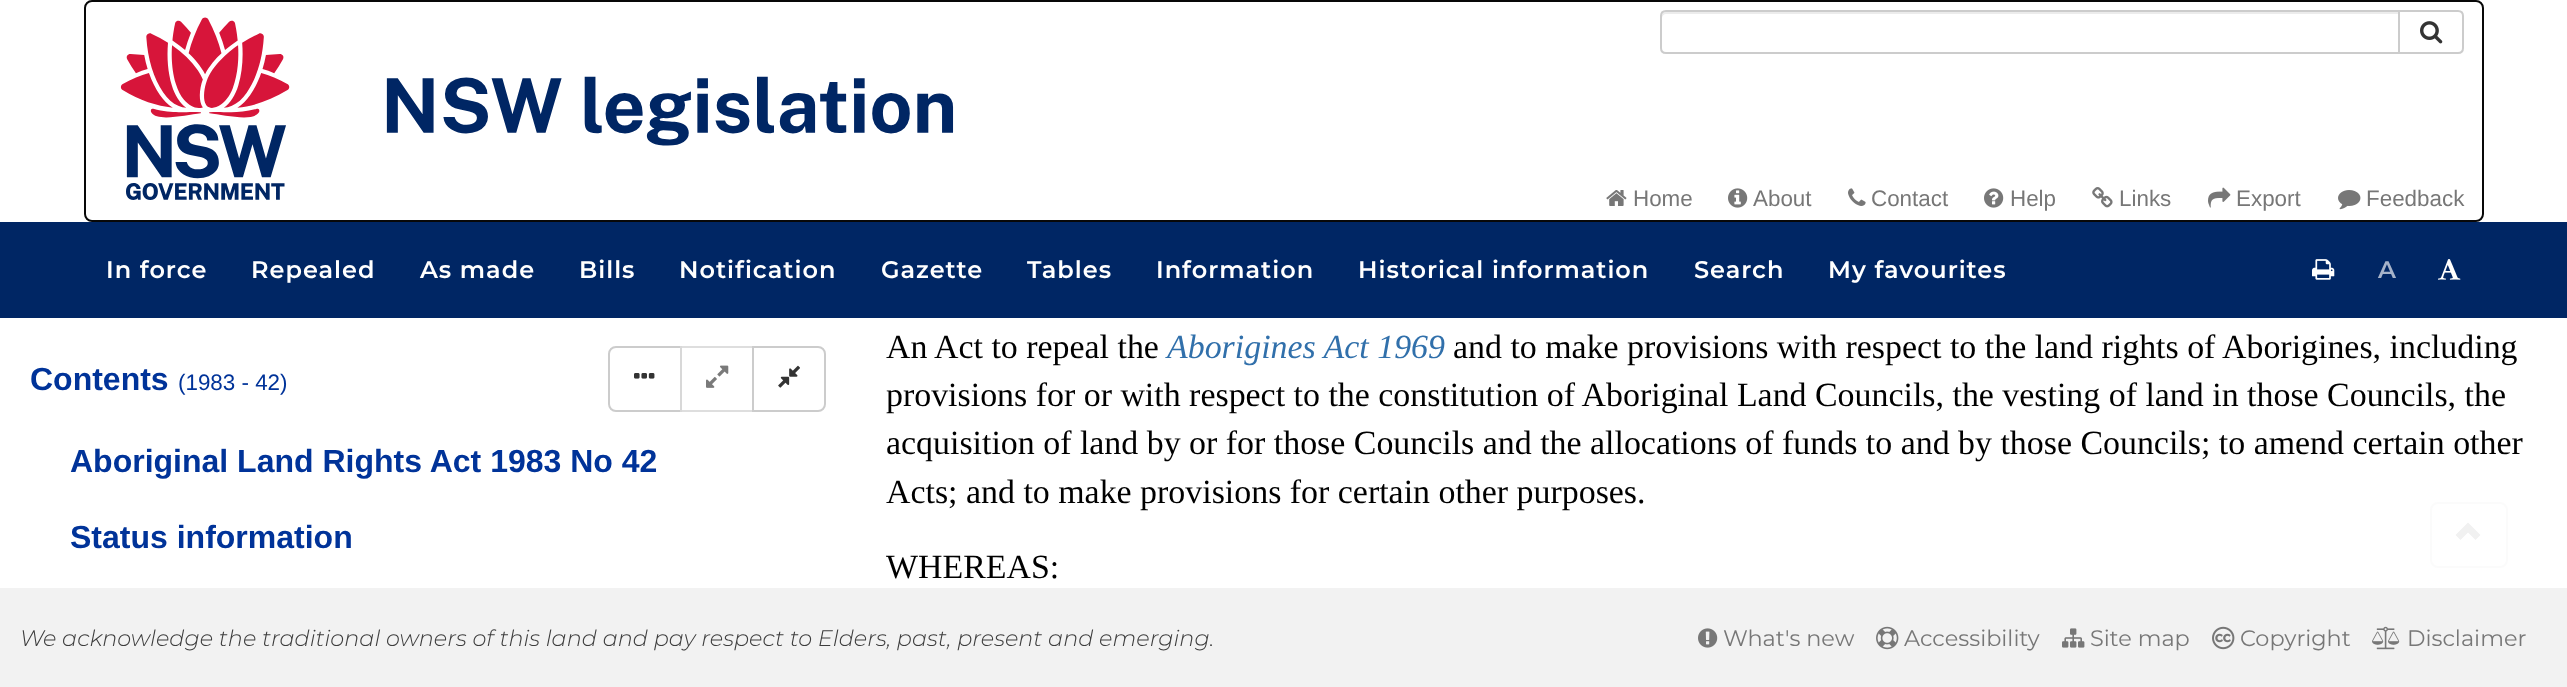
<svg xmlns="http://www.w3.org/2000/svg" width="2567" height="687" viewBox="0 0 2567 687">
  <style>
    .t1 { font: 22.4px Liberation Sans; fill: #777; }
    .t2 { font: 600 24px Montserrat; letter-spacing: 1px; fill: #fff; }
    .t3 { font: 600 24px Montserrat; letter-spacing: 1px; fill: #a6b3c9; }
    .t4 { font: bold 32px Liberation Sans; fill: #039; }
    .t5 { font: 22.4px Liberation Sans; fill: #039; }
    .t6 { font: 33.9px Liberation Serif; fill: #000; }
    .t7 { font: italic 33.9px Liberation Serif; fill: #3170ab; }
    .t8 { font: italic 300 22.4px Montserrat; fill: #3d3d3d; }
    .t9 { font: 22.4px Montserrat; fill: #777; }
  </style>
  <rect width="100%" height="100%" fill="#fff"/>
  <rect x="85" y="1" width="2398" height="220" rx="7" fill="none" stroke="#080808" stroke-width="2"/>
  <image x="120" y="17" width="834" height="183" href="images/1.png"/>
  <path d="M2399 11H2458C2461 11 2463 13 2463 16V48C2463 51 2461 53 2458 53H2399Z" fill="none" stroke="#ccc" stroke-width="2"/>
  <path d="M1666 10H2400V54H1666C1662.5 54 1660 51.5 1660 48V16C1660 12.5 1662.5 10 1666 10Z" fill="#fff"/>
  <path d="M1666 14H2398V12H1666C1662 12 1662 15 1662 18C1662 16 1664 14 1666 14Z" fill="#ececec"/>
  <path d="M1666 11H2399V53H1666C1663 53 1661 51 1661 48V16C1661 13 1663 11 1666 11Z" fill="none" stroke="#ccc" stroke-width="2"/>
  <image x="2420" y="21" width="23" height="23" href="images/2.png"/>
  <image x="1606" y="190" width="21" height="16" href="images/3.png"/>
  <text x="1633" y="206" class="t1">Home</text>
  <image x="1728" y="188" width="20" height="20" href="images/4.png"/>
  <text x="1753" y="206" class="t1">About</text>
  <image x="1848" y="188" width="18" height="18" href="images/5.png"/>
  <text x="1871" y="206" class="t1">Contact</text>
  <image x="1984" y="188" width="20" height="20" href="images/6.png"/>
  <text x="2010" y="206" class="t1">Help</text>
  <image x="2092" y="187" width="21" height="21" href="images/7.png"/>
  <text x="2119" y="206" class="t1">Links</text>
  <image x="2208" y="187" width="23" height="21" href="images/8.png"/>
  <text x="2236" y="206" class="t1">Export</text>
  <image x="2338" y="190" width="23" height="20" href="images/9.png"/>
  <text x="2366" y="206" class="t1">Feedback</text>
  <rect x="0" y="222" width="2567" height="96" fill="#002664"/>
  <text x="106" y="278" class="t2">In force</text>
  <text x="251" y="278" class="t2">Repealed</text>
  <text x="420" y="278" class="t2">As made</text>
  <text x="579" y="278" class="t2">Bills</text>
  <text x="679" y="278" class="t2">Notification</text>
  <text x="881" y="278" class="t2">Gazette</text>
  <text x="1027" y="278" class="t2">Tables</text>
  <text x="1156" y="278" class="t2">Information</text>
  <text x="1358" y="278" class="t2">Historical information</text>
  <text x="1694" y="278" class="t2">Search</text>
  <text x="1828" y="278" class="t2">My favourites</text>
  <image x="2312" y="259" width="23" height="21" href="images/10.png"/>
  <text x="2378" y="278" class="t3">A</text>
  <image x="2438" y="259" width="23" height="21" href="images/11.png"/>
  <text x="30" y="390" class="t4">Contents</text>
  <text x="178" y="390" class="t5">(1983 - 42)</text>
  <path d="M616 347H681V411H616C612 411 609 408 609 404V354C609 350 612 347 616 347Z" fill="none" stroke="#ccc" stroke-width="2"/>
  <image x="634" y="373" width="21" height="6" href="images/12.png"/>
  <rect x="680" y="346" width="2" height="66" fill="#ffffffa6"/>
  <rect x="681" y="347" width="72" height="64" fill="none" stroke="#cccccca6" stroke-width="2"/>
  <image x="706" y="365" width="23" height="23" href="images/13.png"/>
  <path d="M753 347H818C822 347 825 350 825 354V404C825 408 822 411 818 411H753Z" fill="#fff" stroke="#ccc" stroke-width="2"/>
  <image x="778" y="365" width="22" height="23" href="images/14.png"/>
  <text x="70" y="472" class="t4">Aboriginal Land Rights Act 1983 No 42</text>
  <text x="70" y="548" class="t4">Status information</text>
  <text x="886" y="358" class="t6">An Act to repeal the</text>
  <text x="1167" y="358" class="t7">Aborigines Act 1969</text>
  <text x="1453" y="358" class="t6">and to make provisions with respect to the land rights of Aborigines, including</text>
  <text x="886" y="406" class="t6">provisions for or with respect to the constitution of Aboriginal Land Councils, the vesting of land in those Councils, the</text>
  <text x="886" y="454" class="t6">acquisition of land by or for those Councils and the allocations of funds to and by those Councils; to amend certain other</text>
  <text x="886" y="503" class="t6">Acts; and to make provisions for certain other purposes.</text>
  <text x="886" y="578" class="t6">WHEREAS:</text>
  <rect x="2431" y="503" width="76" height="64" rx="7" fill="none" stroke="#fbfbfb" stroke-width="2"/>
  <path d="M2455.5 535L2460.5 540L2468 532.5L2475.5 540L2480.5 535L2468 522.5Z" fill="#f1f1f1"/>
  <rect x="0" y="588" width="2567" height="99" fill="#f2f2f2"/>
  <text x="20" y="646" class="t8">We acknowledge the traditional owners of this land and pay respect to Elders, past, present and emerging.</text>
  <image x="1698" y="628" width="20" height="20" href="images/15.png"/>
  <text x="1723" y="646" class="t9">What's new</text>
  <image x="1876" y="626" width="23" height="24" href="images/16.png"/>
  <text x="1904" y="646" class="t9">Accessibility</text>
  <image x="2062" y="628" width="23" height="20" href="images/17.png"/>
  <text x="2090" y="646" class="t9">Site map</text>
  <image x="2212" y="626" width="23" height="24" href="images/18.png"/>
  <text x="2240" y="646" class="t9">Copyright</text>
  <image x="2372" y="626" width="28" height="24" href="images/19.png"/>
  <text x="2407" y="646" class="t9">Disclaimer</text>
</svg>
